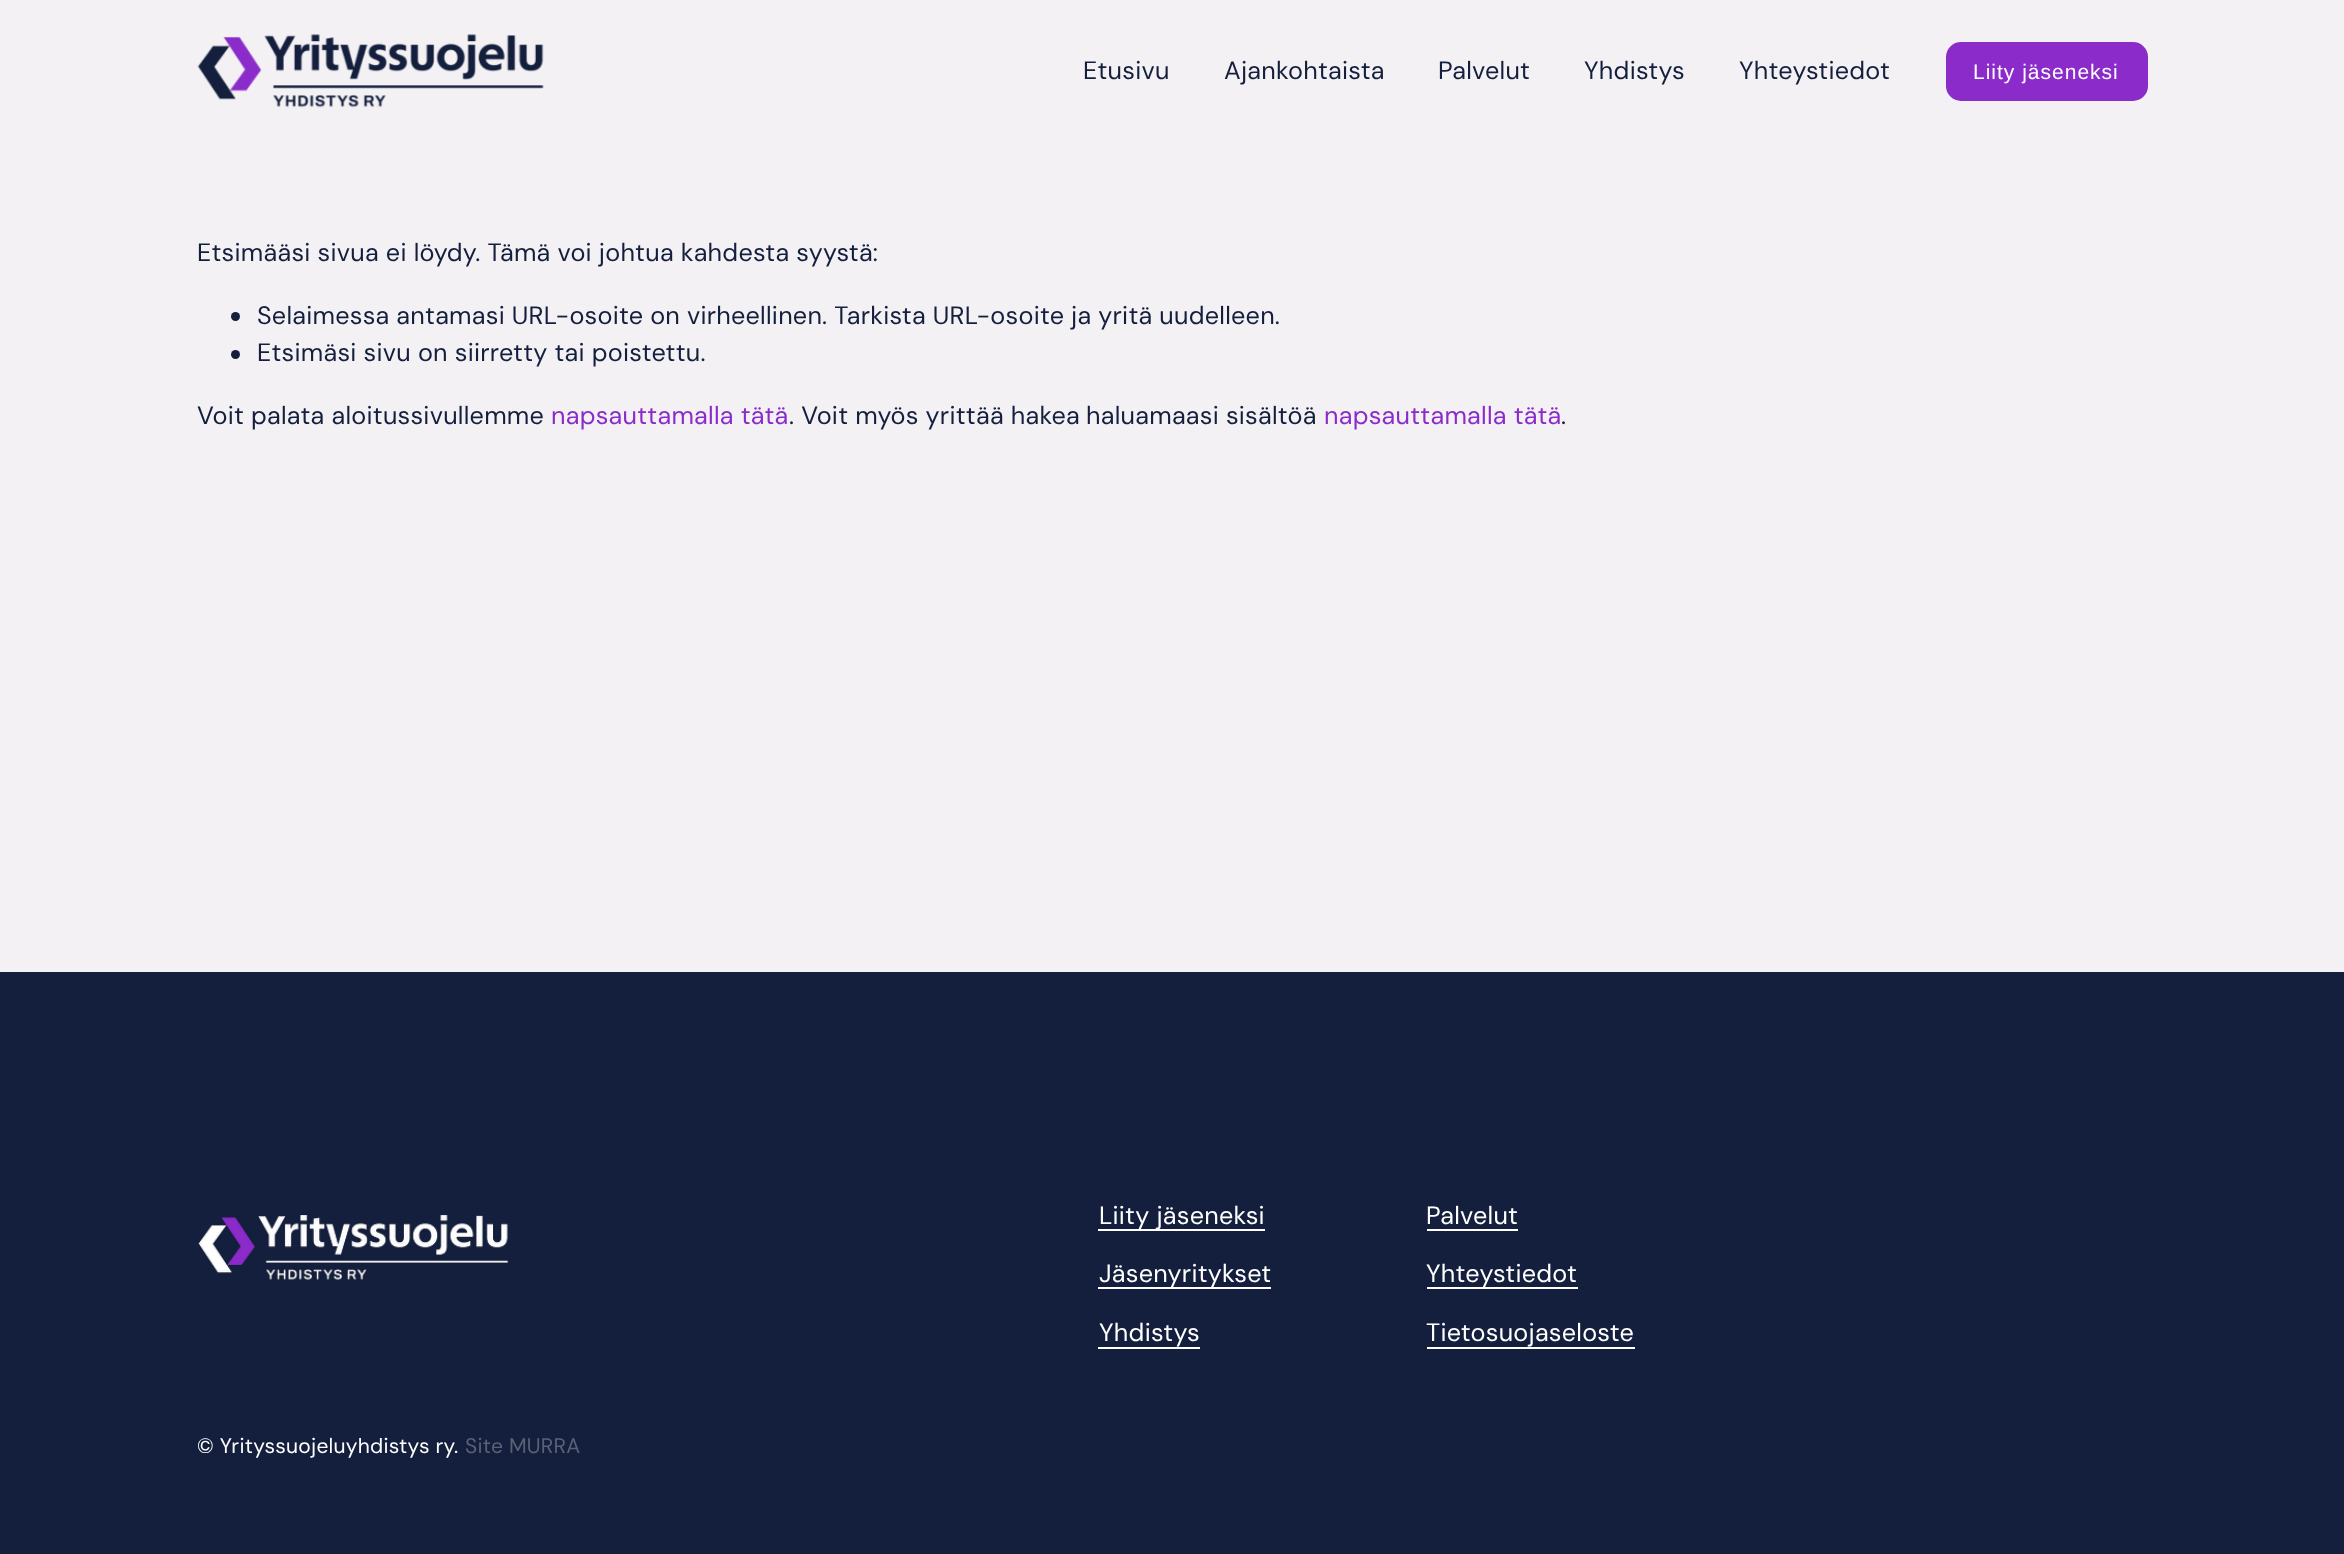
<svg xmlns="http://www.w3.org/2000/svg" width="2344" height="1554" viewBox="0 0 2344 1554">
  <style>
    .t1 { font: 25.2px DM Sans; letter-spacing: 0.25px; fill: #141f3d; }
    .t2 { font: 21px Liberation Sans; letter-spacing: 1px; fill: #fff; }
    .t3 { font: 25.2px DM Sans; letter-spacing: 0.25px; fill: #8a2bca; }
    .t4 { font: 25.2px DM Sans; letter-spacing: 0.25px; fill: #fff; }
    .t5 { font: 21px DM Sans; letter-spacing: 0.25px; fill: #fff; }
    .t6 { font: 21px DM Sans; letter-spacing: 0.25px; fill: #5b6175; }
  </style>
  <rect width="100%" height="100%" fill="#f3f1f4"/>
  <image x="197" y="34" width="347" height="74" href="images/1.png"/>
  <text x="1083" y="79" class="t1">Etusivu</text>
  <text x="1224" y="79" class="t1">Ajankohtaista</text>
  <text x="1438" y="79" class="t1">Palvelut</text>
  <text x="1584" y="79" class="t1">Yhdistys</text>
  <text x="1739" y="79" class="t1">Yhteystiedot</text>
  <rect x="1946" y="42" width="202" height="59" rx="15" fill="#8a2bca"/>
  <text x="1973" y="79" class="t2">Liity jäseneksi</text>
  <text x="197" y="261" class="t1">Etsimääsi sivua ei löydy. Tämä voi johtua kahdesta syystä:</text>
  <circle cx="235.5" cy="316.5" r="4.5" fill="#141f3d"/>
  <text x="257" y="324" word-spacing="-0.1" class="t1">Selaimessa antamasi URL-osoite on virheellinen. Tarkista URL-osoite ja yritä uudelleen.</text>
  <circle cx="235.5" cy="354.5" r="4.5" fill="#141f3d"/>
  <text x="257" y="361" class="t1">Etsimäsi sivu on siirretty tai poistettu.</text>
  <text x="197" y="424" class="t1">Voit palata aloitussivullemme</text>
  <text x="551" y="424" class="t3">napsauttamalla tätä</text>
  <text x="789" y="424" class="t1">. Voit myös yrittää hakea</text>
  <text x="1086" y="424" class="t1">haluamaasi sisältöä</text>
  <text x="1324" y="424" class="t3">napsauttamalla tätä</text>
  <text x="1561" y="424" class="t1">.</text>
  <rect x="0" y="972" width="2344" height="582" fill="#141f3d"/>
  <image x="198" y="1215" width="311" height="65" href="images/2.png"/>
  <rect x="1098" y="1229" width="167" height="2" fill="#fff"/>
  <text x="1099" y="1224" class="t4">Liity jäseneksi</text>
  <rect x="1098" y="1287" width="173" height="2" fill="#fff"/>
  <text x="1099" y="1282" class="t4">Jäsenyritykset</text>
  <text x="1099" y="1341" class="t4">Yhdistys</text>
  <rect x="1098" y="1347" width="102" height="2" fill="#fff"/>
  <text x="1426" y="1224" class="t4">Palvelut</text>
  <rect x="1427" y="1229" width="91" height="2" fill="#fff"/>
  <rect x="1427" y="1287" width="151" height="2" fill="#fff"/>
  <text x="1426" y="1282" class="t4">Yhteystiedot</text>
  <text x="1426" y="1341" class="t4">Tietosuojaseloste</text>
  <rect x="1427" y="1347" width="208" height="2" fill="#fff"/>
  <text x="197" y="1453" class="t5">© Yrityssuojeluyhdistys ry.</text>
  <text x="465" y="1453" class="t6">Site MURRA</text>
</svg>
